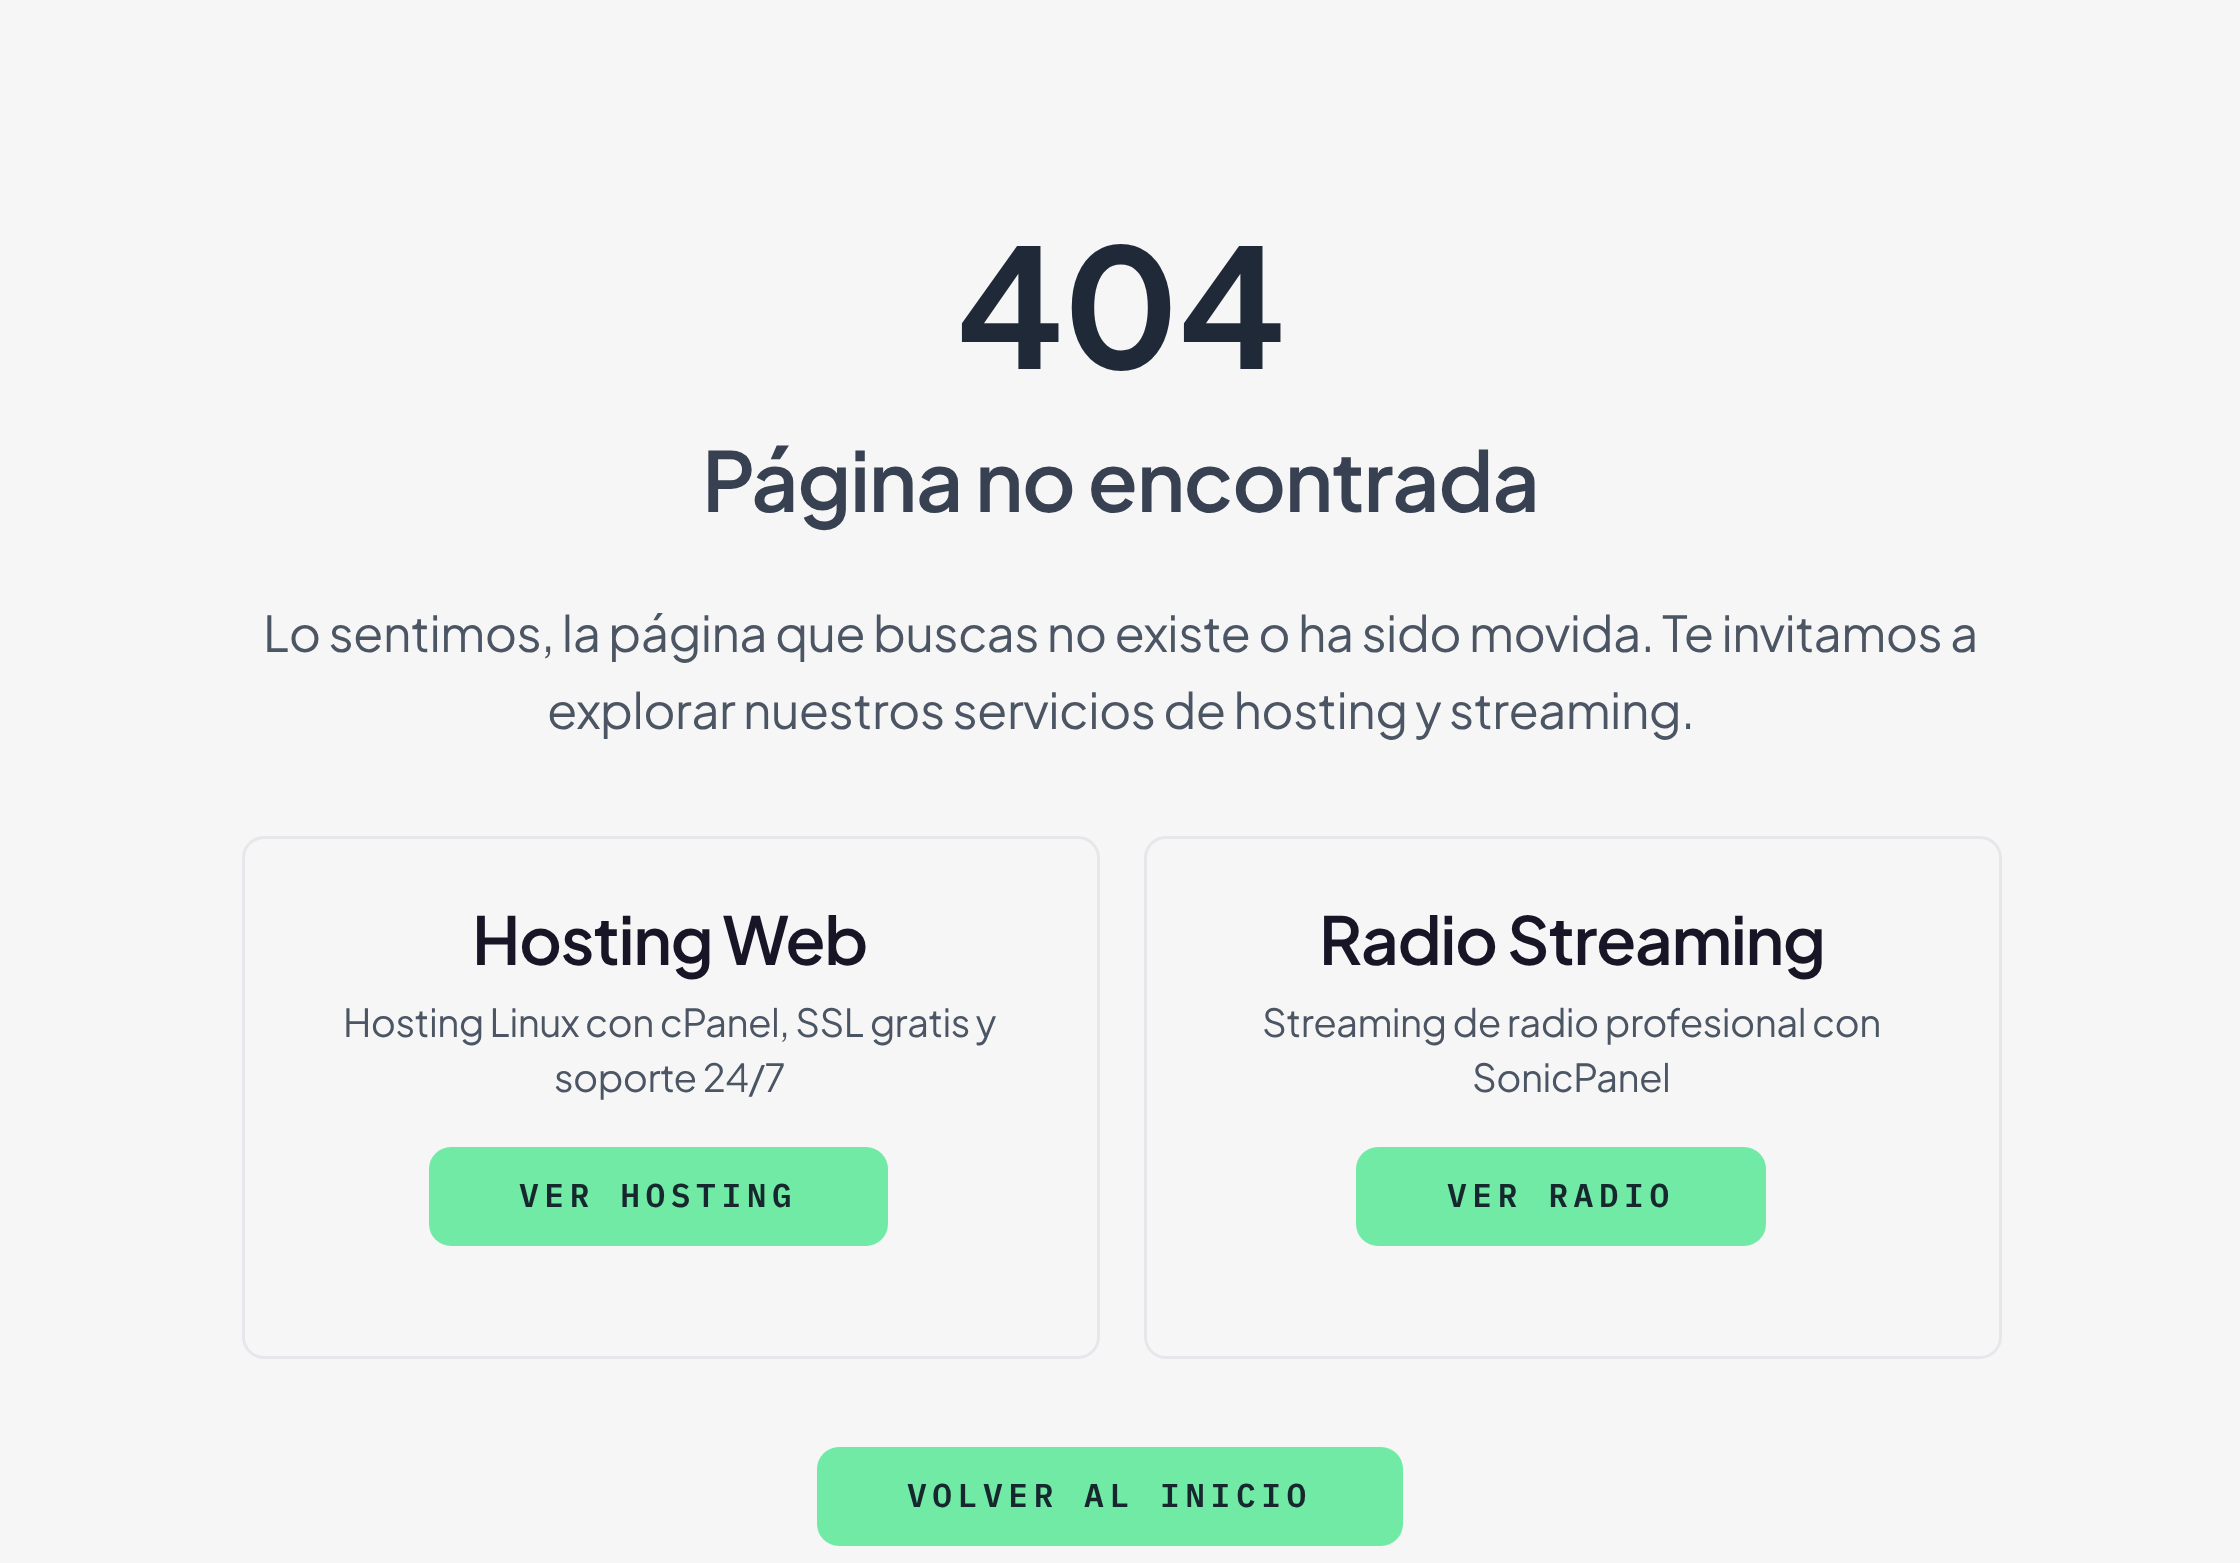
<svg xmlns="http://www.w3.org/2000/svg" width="2240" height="1563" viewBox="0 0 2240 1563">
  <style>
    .t1 { font: bold 165px Plus Jakarta Sans; letter-spacing: -1.4px; fill: #1f2937; }
    .t2 { font: 600 82.5px Plus Jakarta Sans; letter-spacing: -1.4px; fill: #374151; }
    .t3 { font: 49.5px Plus Jakarta Sans; letter-spacing: -0.55px; fill: #4b5563; }
    .t4 { font: 600 66px Plus Jakarta Sans; letter-spacing: -1.4px; fill: #181526; }
    .t5 { font: 38.5px Plus Jakarta Sans; letter-spacing: -0.55px; fill: #4b5563; }
    .t6 { font: 600 33px IBM Plex Mono; letter-spacing: 5.5px; fill: #16272d; }
  </style>
  <rect width="100%" height="100%" fill="#f6f6f6"/>
  <text x="956" y="369" class="t1">404</text>
  <text x="702" y="512" class="t2">Página no encontrada</text>
  <text x="263" y="652" class="t3">Lo sentimos, la página que buscas no existe o ha sido movida. Te invitamos a</text>
  <text x="547" y="729" class="t3">explorar nuestros servicios de hosting y streaming.</text>
  <rect x="243.5" y="837.5" width="855" height="520" rx="20.5" fill="none" stroke="#e5e7eb" stroke-width="3"/>
  <text x="472" y="965" class="t4">Hosting Web</text>
  <text x="343" y="1037" class="t5">Hosting Linux con cPanel, SSL gratis y</text>
  <text x="554" y="1092" class="t5">soporte 24/7</text>
  <rect x="429" y="1147" width="459" height="99" rx="22" fill="#71eaa6"/>
  <text x="519" y="1207" class="t6">VER HOSTING</text>
  <rect x="1145.5" y="837.5" width="855" height="520" rx="20.5" fill="none" stroke="#e5e7eb" stroke-width="3"/>
  <text x="1319" y="965" class="t4">Radio Streaming</text>
  <text x="1262" y="1037" class="t5">Streaming de radio profesional con</text>
  <text x="1472" y="1092" class="t5">SonicPanel</text>
  <rect x="1356" y="1147" width="410" height="99" rx="22" fill="#71eaa6"/>
  <text x="1447" y="1207" class="t6">VER RADIO</text>
  <rect x="817" y="1447" width="586" height="99" rx="22" fill="#71eaa6"/>
  <text x="907" y="1507" class="t6">VOLVER AL INICIO</text>
</svg>
